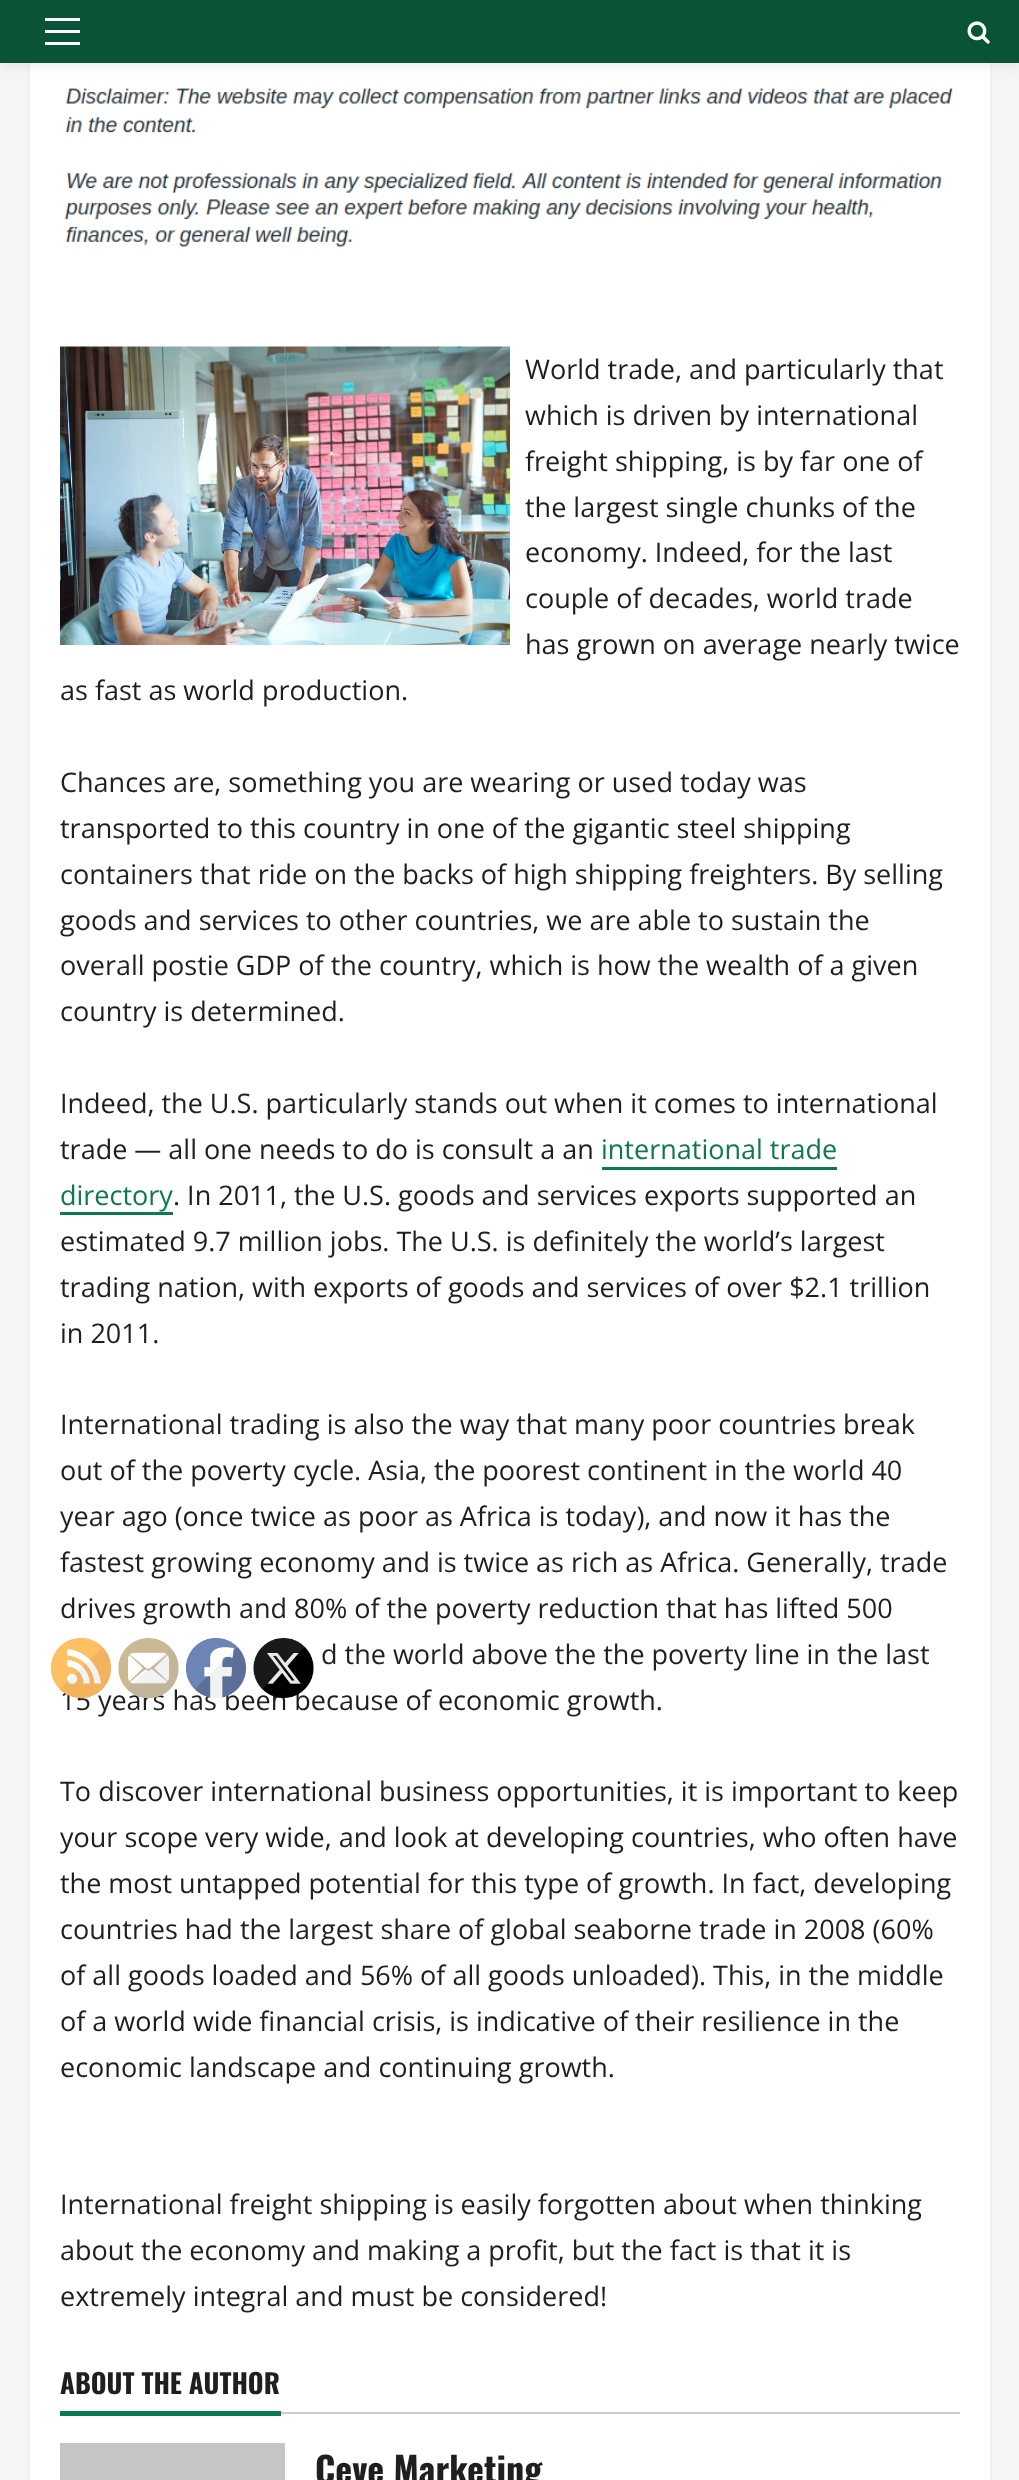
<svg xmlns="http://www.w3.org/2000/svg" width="1019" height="2480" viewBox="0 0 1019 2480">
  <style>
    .t1 { font: 27px Open Sans; fill: #1f1f1f; }
    .t2 { font: 27px Open Sans; fill: #0c794f; }
    .t3 { font: bold 27px Oswald; fill: #1f1f1f; }
    .t4 { font: bold 36px Oswald; fill: #1f1f1f; }
  </style>
  <rect width="100%" height="100%" fill="#f5f5f5"/>
  <rect x="30" y="-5" width="960" height="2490" fill="#00000014" filter="blur(1.5px)"/>
  <rect x="30" y="63" width="960" height="2417" fill="#fff"/>
  <rect x="0" y="3" width="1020" height="63" fill="#00000014" filter="blur(6px)"/>
  <rect x="0" y="0" width="1019" height="63" fill="#095437"/>
  <rect x="45" y="30" width="35" height="3" fill="#fff"/>
  <rect x="45" y="18" width="35" height="3" fill="#fff"/>
  <rect x="45" y="42" width="35" height="3" fill="#fff"/>
  <image x="967" y="21" width="23" height="23" href="images/1.png"/>
  <image x="64" y="88" width="890" height="159" href="images/2.png"/>
  <image x="60" y="346" width="450" height="299" href="images/3.png"/>
  <text x="525" y="379" class="t1">World trade, and particularly that</text>
  <text x="525" y="425" class="t1">which is driven by international</text>
  <text x="525" y="471" class="t1">freight shipping, is by far one of</text>
  <text x="525" y="517" class="t1">the largest single chunks of the</text>
  <text x="525" y="562" class="t1">economy. Indeed, for the last</text>
  <text x="525" y="608" class="t1">couple of decades, world trade</text>
  <text x="525" y="654" class="t1">has grown on average nearly twice</text>
  <text x="60" y="700" class="t1">as fast as world production.</text>
  <text x="60" y="792" class="t1">Chances are, something you are wearing or used today was</text>
  <text x="60" y="838" class="t1">transported to this country in one of the gigantic steel shipping</text>
  <text x="60" y="884" class="t1">containers that ride on the backs of high shipping freighters. By selling</text>
  <text x="60" y="930" class="t1">goods and services to other countries, we are able to sustain the</text>
  <text x="60" y="975" class="t1">overall postie GDP of the country, which is how the wealth of a given</text>
  <text x="60" y="1021" class="t1">country is determined.</text>
  <text x="60" y="1113" class="t1">Indeed, the U.S. particularly stands out when it comes to international</text>
  <text x="60" y="1159" class="t1">trade — all one needs to do is consult a an</text>
  <text x="601" y="1159" class="t2">international trade</text>
  <rect x="602" y="1167" width="235" height="3" fill="#0c794f"/>
  <text x="60" y="1205" class="t2">directory</text>
  <rect x="60" y="1212" width="113" height="3" fill="#0c794f"/>
  <text x="173" y="1205" class="t1">. In 2011, the U.S. goods and services exports supported an</text>
  <text x="60" y="1251" class="t1">estimated 9.7 million jobs. The U.S. is definitely the world’s largest</text>
  <text x="60" y="1297" class="t1">trading nation, with exports of goods and services of over $2.1 trillion</text>
  <text x="60" y="1343" class="t1">in 2011.</text>
  <text x="60" y="1434" class="t1">International trading is also the way that many poor countries break</text>
  <text x="60" y="1480" class="t1">out of the poverty cycle. Asia, the poorest continent in the world 40</text>
  <text x="60" y="1526" class="t1">year ago (once twice as poor as Africa is today), and now it has the</text>
  <text x="60" y="1572" class="t1">fastest growing economy and is twice as rich as Africa. Generally, trade</text>
  <text x="60" y="1618" class="t1">drives growth and 80% of the poverty reduction that has lifted 500</text>
  <text x="321" y="1664" class="t1">d the world above the the poverty line in the last</text>
  <text x="60" y="1710" class="t1">15 years has been because of economic growth.</text>
  <text x="60" y="1801" class="t1">To discover international business opportunities, it is important to keep</text>
  <text x="60" y="1847" class="t1">your scope very wide, and look at developing countries, who often have</text>
  <text x="60" y="1893" class="t1">the most untapped potential for this type of growth. In fact, developing</text>
  <text x="60" y="1939" class="t1">countries had the largest share of global seaborne trade in 2008 (60%</text>
  <text x="60" y="1985" class="t1">of all goods loaded and 56% of all goods unloaded). This, in the middle</text>
  <text x="60" y="2031" class="t1">of a world wide financial crisis, is indicative of their resilience in the</text>
  <text x="60" y="2077" class="t1">economic landscape and continuing growth.</text>
  <text x="60" y="2214" class="t1">International freight shipping is easily forgotten about when thinking</text>
  <text x="60" y="2260" class="t1">about the economy and making a profit, but the fact is that it is</text>
  <text x="60" y="2306" class="t1">extremely integral and must be considered!</text>
  <rect x="281" y="2412" width="679" height="2" fill="#ccc"/>
  <text x="60" y="2394" class="t3">ABOUT THE AUTHOR</text>
  <rect x="60" y="2411" width="221" height="5" fill="#0c794f"/>
  <rect x="60" y="2443" width="225" height="37" fill="#c5c5c5"/>
  <text x="315" y="2484" class="t4">Ceve Marketing</text>
  <image x="51" y="1638" width="60" height="60" href="images/4.png"/>
  <image x="118" y="1638" width="61" height="60" href="images/5.png"/>
  <image x="186" y="1638" width="60" height="60" href="images/6.png"/>
  <image x="253" y="1638" width="61" height="60" href="images/7.png"/>
</svg>
